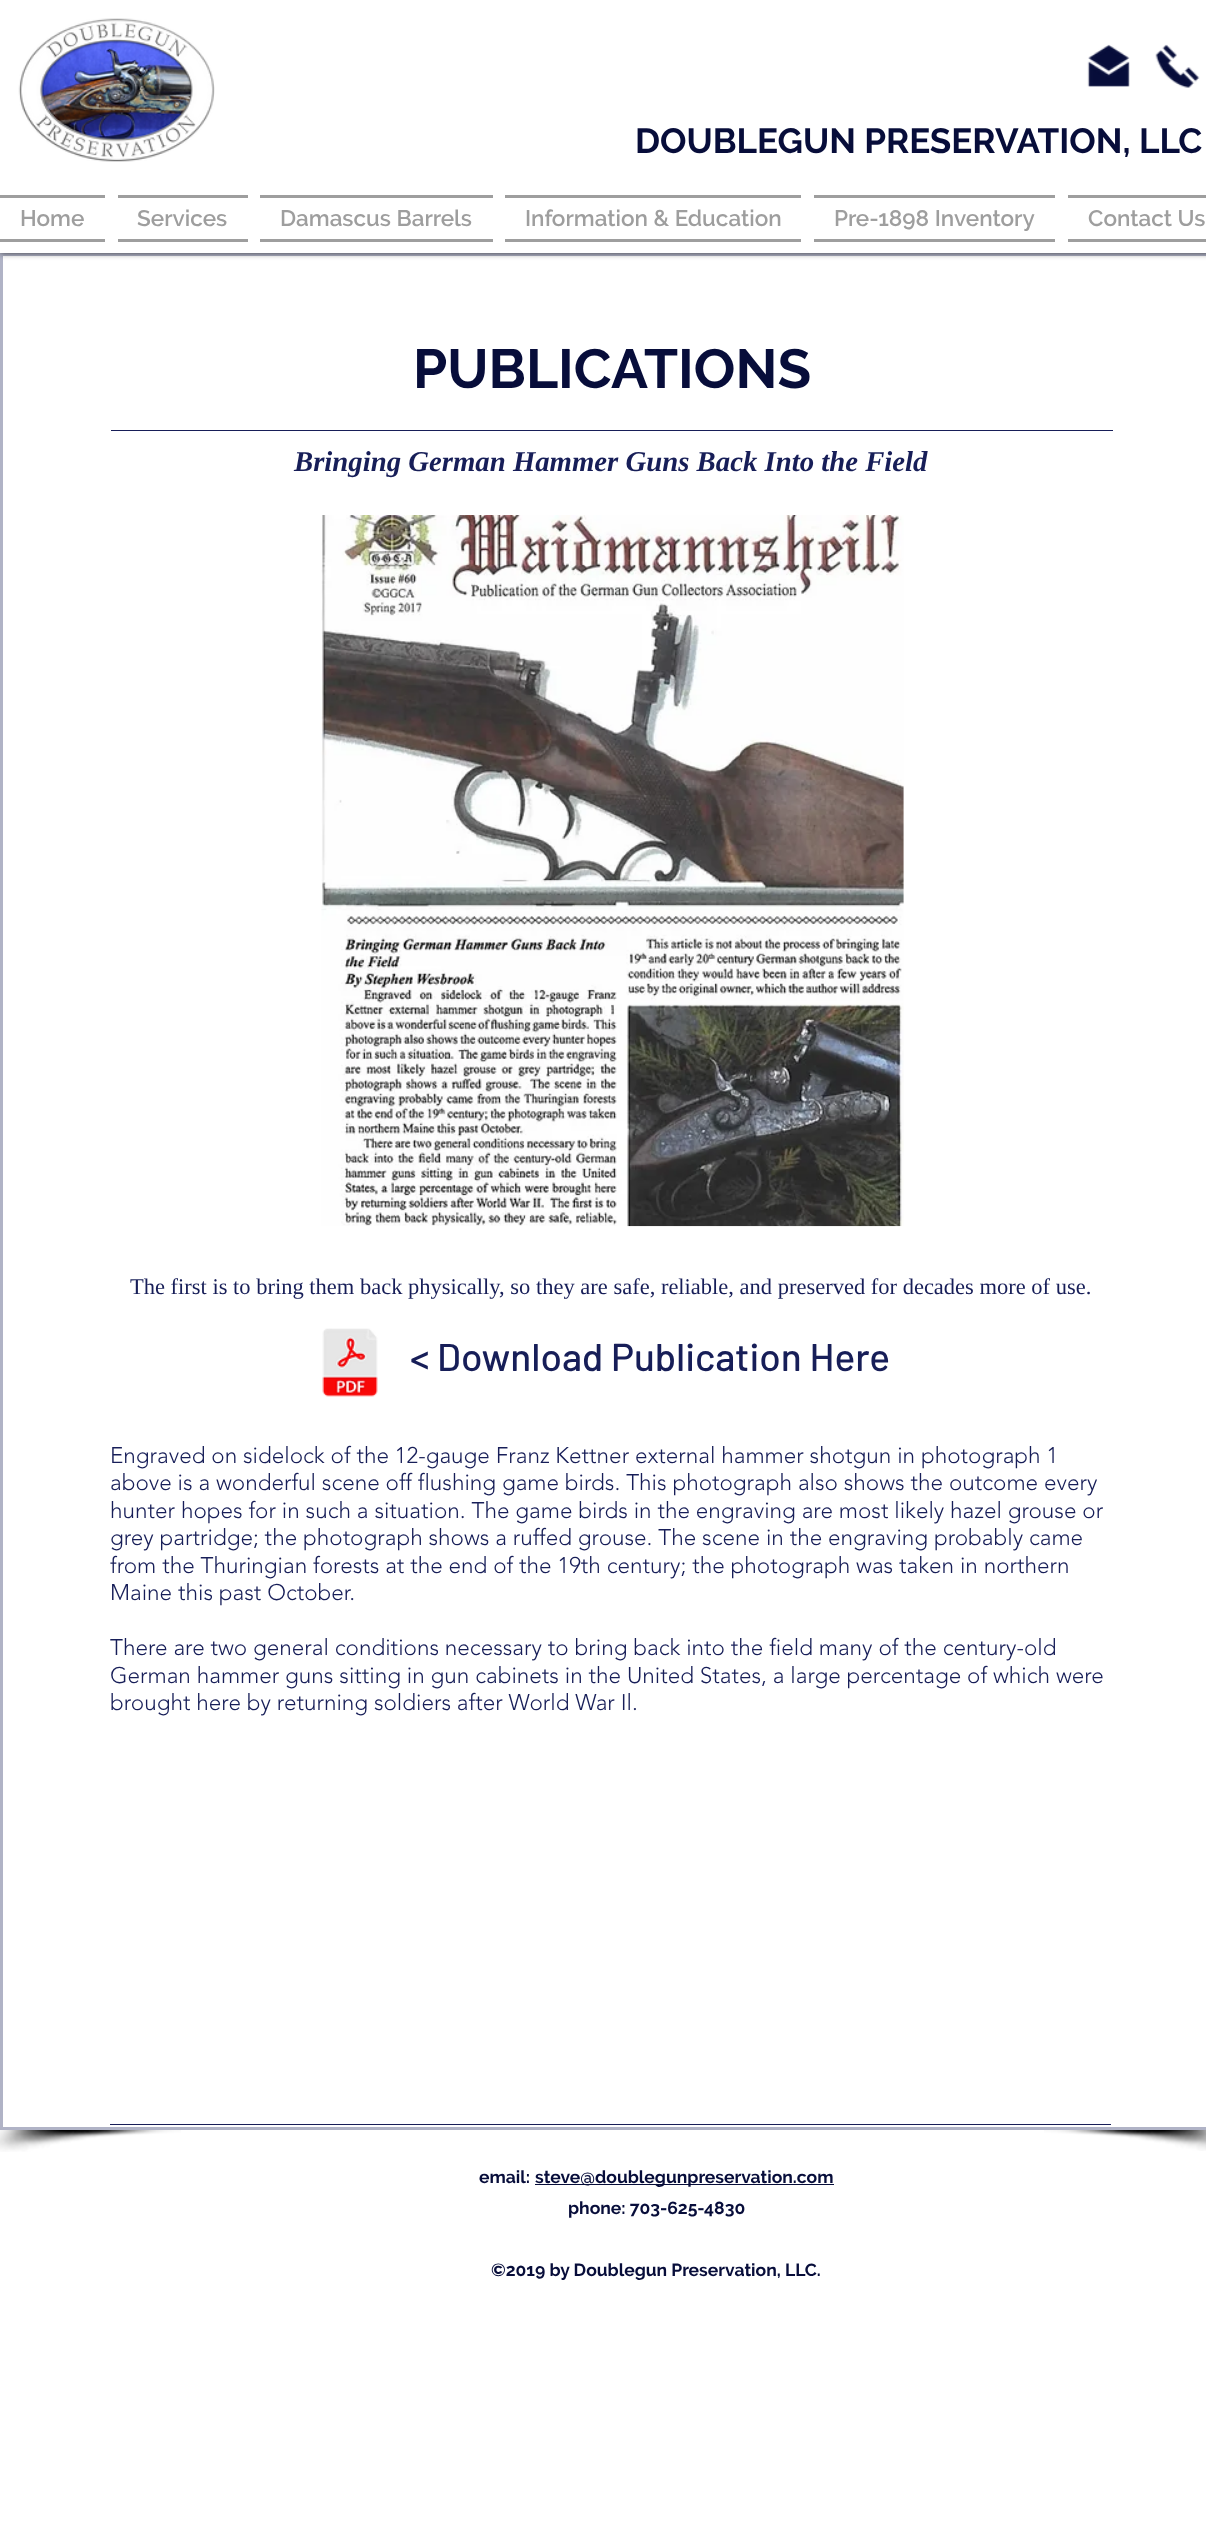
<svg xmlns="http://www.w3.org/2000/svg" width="1206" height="2540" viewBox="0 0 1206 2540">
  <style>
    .t1 { font: bold 35px Raleway; fill: #070d3a; }
    .t2 { font: 600 22.5px Raleway; fill: #9e9e9e; }
    .t3 { font: bold 55px Raleway; fill: #070d3a; }
    .t4 { font: italic bold 28.75px Liberation Serif; fill: #171e58; }
    .t5 { font: 22.5px Liberation Serif; fill: #171e58; }
    .t6 { font: 300 22.5px 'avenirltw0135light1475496'; fill: #171e58; }
    .t7 { font: 500 38.75px Barlow; fill: #171e58; }
    .t8 { font: bold 17.5px Raleway; fill: #070d3a; }
  </style>
  <rect width="100%" height="100%" fill="#fff"/>
  <rect x="1.5" y="254.5" width="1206" height="1874" fill="none" stroke="#b0b3c6" stroke-width="3"/>
  <rect x="0" y="0" width="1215" height="253" fill="#000000b3" filter="blur(3px)"/>
  <rect x="0" y="0" width="1206" height="253" fill="#fff"/>
  <image x="18" y="18" width="197" height="144" href="images/1.png"/>
  <image x="1087" y="44" width="43" height="43" href="images/2.png"/>
  <image x="1155" y="44" width="45" height="44" href="images/3.png"/>
  <text x="635" y="153" class="t1">DOUBLEGUN PRESERVATION, LLC</text>
  <rect x="0" y="195" width="105" height="3" fill="#9e9e9e"/>
  <rect x="0" y="239" width="105" height="3" fill="#9e9e9e"/>
  <text x="20" y="226" class="t2">Home</text>
  <rect x="118" y="195" width="130" height="3" fill="#9e9e9e"/>
  <rect x="118" y="239" width="130" height="3" fill="#9e9e9e"/>
  <text x="137" y="226" class="t2">Services</text>
  <rect x="260" y="195" width="233" height="3" fill="#9e9e9e"/>
  <rect x="260" y="239" width="233" height="3" fill="#9e9e9e"/>
  <text x="280" y="226" class="t2">Damascus Barrels</text>
  <rect x="505" y="195" width="296" height="3" fill="#9e9e9e"/>
  <rect x="505" y="239" width="296" height="3" fill="#9e9e9e"/>
  <text x="525" y="226" class="t2">Information &amp; Education</text>
  <rect x="814" y="195" width="241" height="3" fill="#9e9e9e"/>
  <rect x="814" y="239" width="241" height="3" fill="#9e9e9e"/>
  <text x="834" y="226" class="t2">Pre-1898 Inventory</text>
  <rect x="1068" y="195" width="138" height="3" fill="#9e9e9e"/>
  <rect x="1068" y="239" width="138" height="3" fill="#9e9e9e"/>
  <text x="1088" y="226" class="t2">Contact Us</text>
  <image x="0" y="2130" width="181" height="22" href="images/4.png"/>
  <image x="1044" y="2130" width="162" height="21" href="images/5.png"/>
  <text x="413" y="388" class="t3">PUBLICATIONS</text>
  <rect x="111" y="430" width="1002" height="1" fill="#171e58"/>
  <text x="294" y="471" class="t4">Bringing German Hammer Guns Back Into the Field</text>
  <text x="130" y="1294" class="t5">The first is to bring them back physically, so they are safe, reliable, and preserved for decades more of use.</text>
  <text x="110" y="1463" class="t6">Engraved on sidelock of the 12-gauge Franz Kettner external hammer shotgun in photograph 1</text>
  <text x="110" y="1490" class="t6">above is a wonderful scene off flushing game birds. This photograph also shows the outcome every</text>
  <text x="110" y="1518" class="t6">hunter hopes for in such a situation. The game birds in the engraving are most likely hazel grouse or</text>
  <text x="110" y="1545" class="t6">grey partridge; the photograph shows a ruffed grouse. The scene in the engraving probably came</text>
  <text x="110" y="1573" class="t6">from the Thuringian forests at the end of the 19th century; the photograph was taken in northern</text>
  <text x="110" y="1600" class="t6">Maine this past October.</text>
  <text x="110" y="1655" class="t6">There are two general conditions necessary to bring back into the field many of the century-old</text>
  <text x="110" y="1683" class="t6">German hammer guns sitting in gun cabinets in the United States, a large percentage of which were</text>
  <text x="110" y="1710" class="t6">brought here by returning soldiers after World War Il.</text>
  <rect x="110" y="2124" width="1001" height="1" fill="#171e58"/>
  <image x="321" y="515" width="583" height="712" href="images/6.png"/>
  <image x="322" y="1328" width="56" height="69" href="images/7.png"/>
  <text x="410" y="1371" class="t7">&lt; Download Publication Here</text>
  <text x="479" y="2183" class="t8">email:</text>
  <rect x="535" y="2184" width="299" height="1" fill="#070d3a"/>
  <text x="535" y="2183" class="t8">steve@doublegunpreservation.com</text>
  <text x="568" y="2214" class="t8">phone: 703-625-4830</text>
  <text x="491" y="2276" class="t8">©2019 by Doublegun Preservation, LLC.</text>
</svg>
